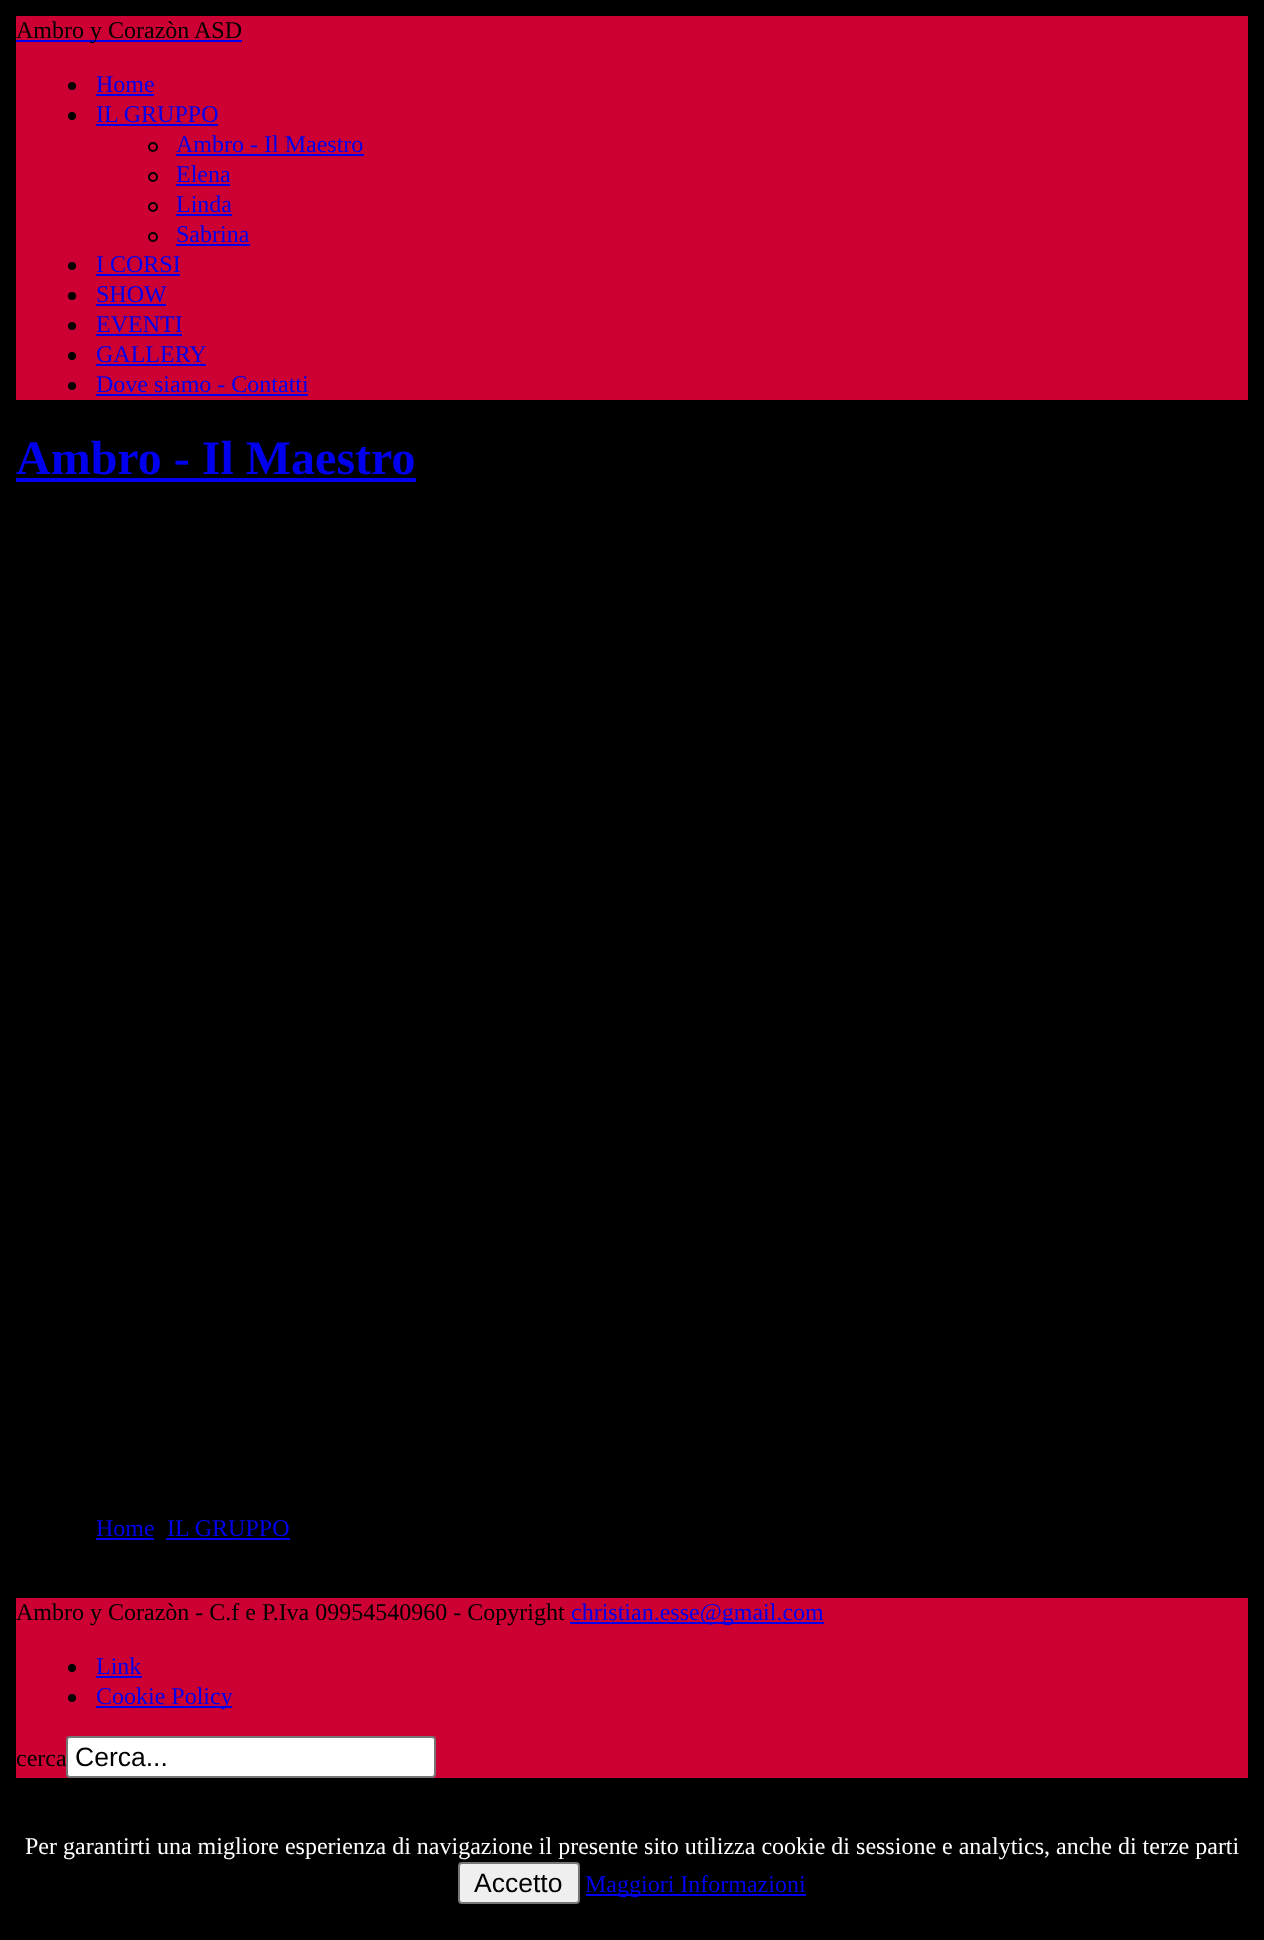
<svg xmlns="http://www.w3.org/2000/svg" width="1264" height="1940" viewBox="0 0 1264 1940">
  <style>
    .t1 { font: 24px Liberation Serif; fill: #000; }
    .t2 { font: 24px Liberation Serif; fill: #00e; }
    .t3 { font: bold 48px Liberation Serif; fill: #00e; }
    .t4 { font: 26.5px Liberation Sans; fill: #000; }
    .t5 { font: 24px Liberation Serif; fill: #fff; }
  </style>
  <rect width="100%" height="100%" fill="#000"/>
  <rect x="16" y="16" width="1232" height="384" fill="#c03"/>
  <rect x="16" y="40" width="226" height="2" fill="#00e"/>
  <text x="16" y="38" class="t1">Ambro y Corazòn ASD</text>
  <circle cx="72" cy="86" r="4" fill="#000"/>
  <text x="96" y="92" class="t2">Home</text>
  <rect x="96" y="94" width="58" height="2" fill="#00e"/>
  <circle cx="72" cy="116" r="4" fill="#000"/>
  <text x="96" y="122" class="t2">IL GRUPPO</text>
  <rect x="96" y="124" width="122" height="2" fill="#00e"/>
  <circle cx="153" cy="147" r="4" fill="none" stroke="#000" stroke-width="2"/>
  <text x="176" y="152" class="t2">Ambro - Il Maestro</text>
  <rect x="176" y="154" width="188" height="2" fill="#00e"/>
  <circle cx="153" cy="177" r="4" fill="none" stroke="#000" stroke-width="2"/>
  <text x="176" y="182" class="t2">Elena</text>
  <rect x="176" y="184" width="54" height="2" fill="#00e"/>
  <circle cx="153" cy="207" r="4" fill="none" stroke="#000" stroke-width="2"/>
  <text x="176" y="212" class="t2">Linda</text>
  <rect x="176" y="214" width="56" height="2" fill="#00e"/>
  <circle cx="153" cy="237" r="4" fill="none" stroke="#000" stroke-width="2"/>
  <text x="176" y="242" class="t2">Sabrina</text>
  <rect x="176" y="244" width="74" height="2" fill="#00e"/>
  <circle cx="72" cy="266" r="4" fill="#000"/>
  <text x="96" y="272" class="t2">I CORSI</text>
  <rect x="96" y="274" width="84" height="2" fill="#00e"/>
  <circle cx="72" cy="296" r="4" fill="#000"/>
  <text x="96" y="302" class="t2">SHOW</text>
  <rect x="96" y="304" width="70" height="2" fill="#00e"/>
  <circle cx="72" cy="326" r="4" fill="#000"/>
  <text x="96" y="332" class="t2">EVENTI</text>
  <rect x="96" y="334" width="86" height="2" fill="#00e"/>
  <circle cx="72" cy="356" r="4" fill="#000"/>
  <text x="96" y="362" class="t2">GALLERY</text>
  <rect x="96" y="364" width="110" height="2" fill="#00e"/>
  <circle cx="72" cy="386" r="4" fill="#000"/>
  <text x="96" y="392" class="t2">Dove siamo - Contatti</text>
  <rect x="96" y="394" width="212" height="2" fill="#00e"/>
  <text x="16" y="474" class="t3">Ambro - Il Maestro</text>
  <rect x="16" y="478" width="400" height="4" fill="#00e"/>
  <text x="96" y="1536" class="t2">Home</text>
  <rect x="96" y="1538" width="58" height="2" fill="#00e"/>
  <text x="167" y="1536" class="t2">IL GRUPPO</text>
  <rect x="166" y="1538" width="124" height="2" fill="#00e"/>
  <rect x="16" y="1598" width="1232" height="180" fill="#c03"/>
  <text x="16" y="1620" class="t1">Ambro y Corazòn - C.f e P.Iva 09954540960 - Copyright</text>
  <rect x="570" y="1622" width="254" height="2" fill="#00e"/>
  <text x="571" y="1620" class="t2">christian.esse@gmail.com</text>
  <circle cx="72" cy="1668" r="4" fill="#000"/>
  <text x="96" y="1674" class="t2">Link</text>
  <rect x="96" y="1676" width="46" height="2" fill="#00e"/>
  <circle cx="72" cy="1698" r="4" fill="#000"/>
  <rect x="96" y="1706" width="136" height="2" fill="#00e"/>
  <text x="96" y="1704" class="t2">Cookie Policy</text>
  <text x="16" y="1766" class="t1">cerca</text>
  <rect x="67" y="1737" width="368" height="40" rx="3" fill="#fff" stroke="#767676" stroke-width="2"/>
  <text x="75" y="1766" class="t4">Cerca...</text>
  <text x="25" y="1854" class="t5">Per garantirti una migliore esperienza di navigazione il presente sito utilizza cookie di sessione e analytics, anche di terze parti</text>
  <rect x="459" y="1863" width="120" height="40" rx="3" fill="#efefef" stroke="#767676" stroke-width="2"/>
  <text x="474" y="1892" class="t4">Accetto</text>
  <rect x="586" y="1894" width="220" height="2" fill="#00e"/>
  <text x="585" y="1892" class="t2">Maggiori Informazioni</text>
</svg>
